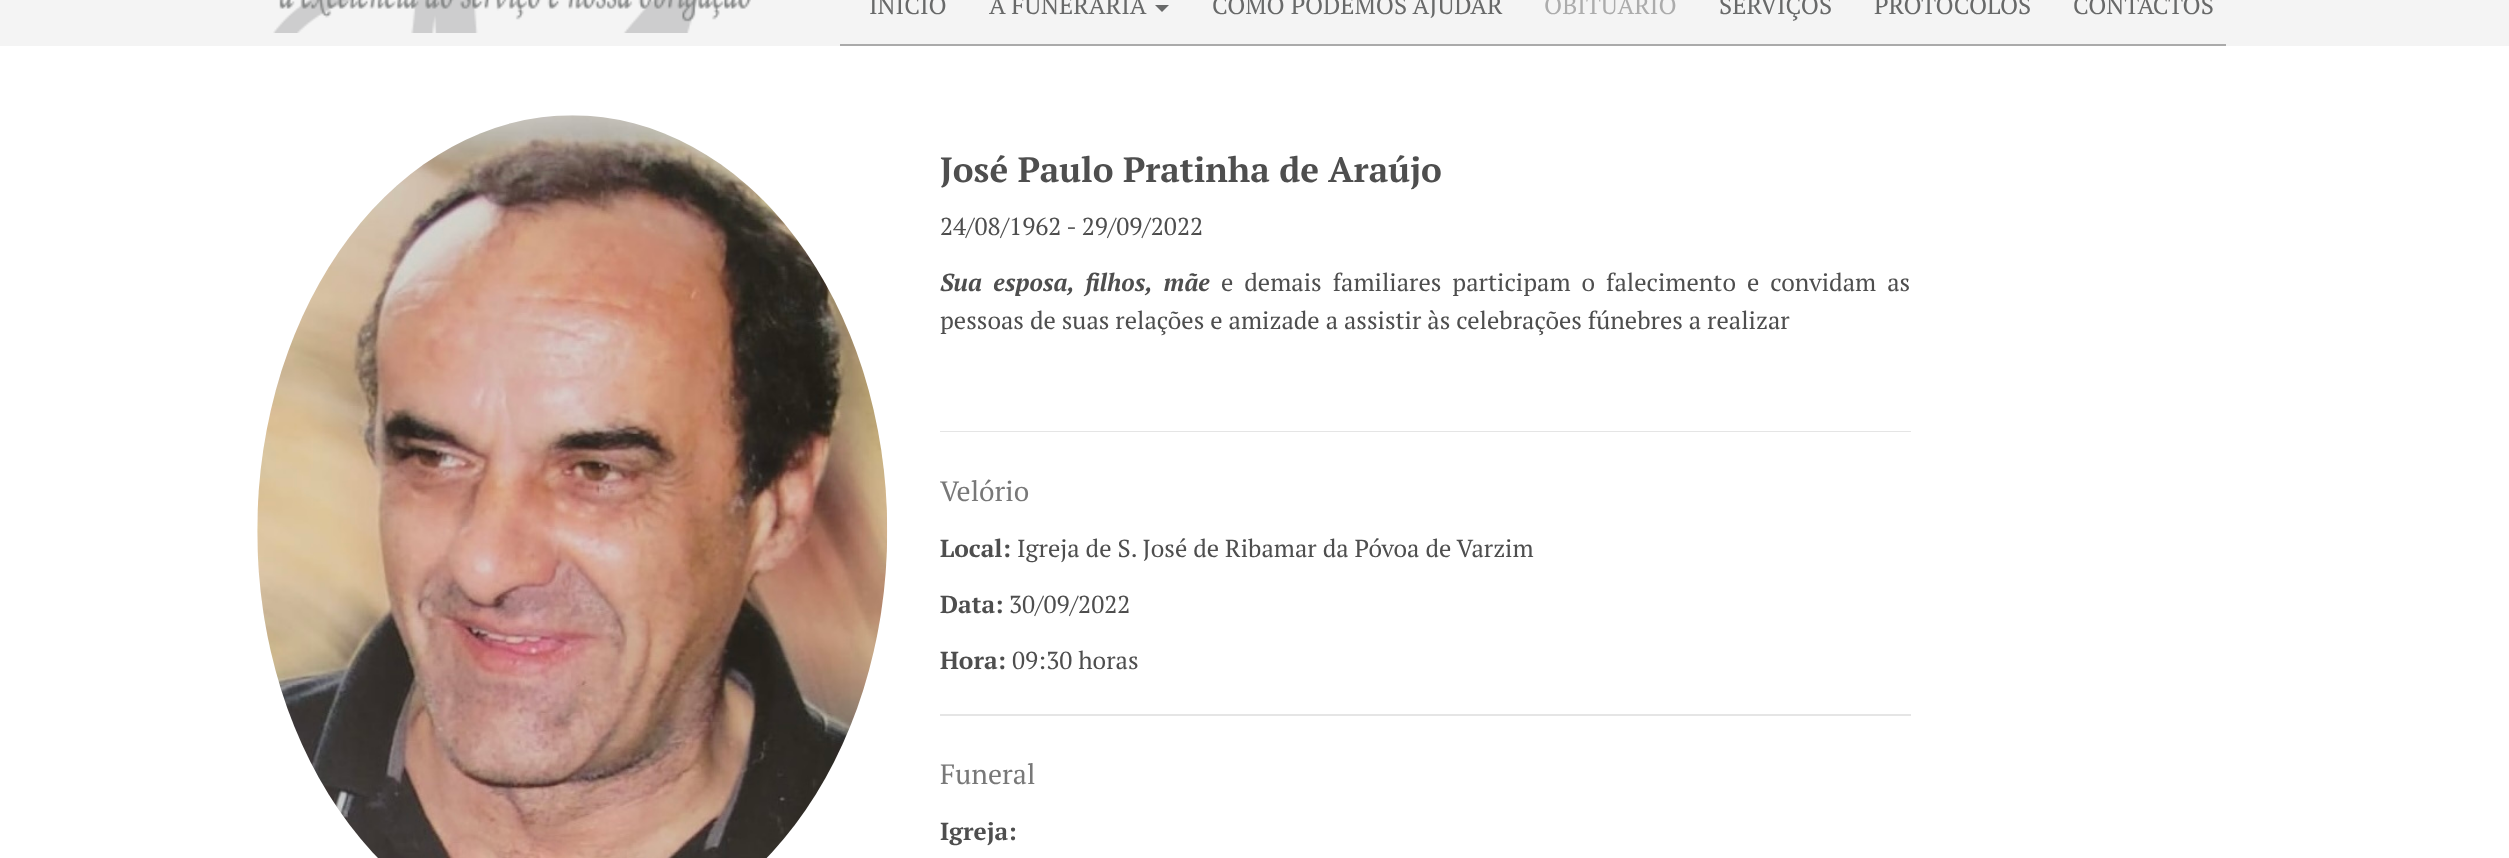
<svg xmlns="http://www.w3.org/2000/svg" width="2509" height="858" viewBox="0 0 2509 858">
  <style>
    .t1 { font: 24.5px PT Serif; fill: #686969; }
    .t2 { font: 24.5px PT Serif; fill: #acacac; }
    .t3 { font: bold 35px PT Serif; fill: #4e4e4e; }
    .t4 { font: 24.5px PT Serif; fill: #4e4e4e; }
    .t5 { font: italic bold 24.5px PT Serif; fill: #4e4e4e; }
    .t6 { font: 28px PT Serif; fill: #787878; }
    .t7 { font: bold 24.5px PT Serif; fill: #4e4e4e; }
  </style>
  <rect width="100%" height="100%" fill="#fff"/>
  <rect x="0" y="0" width="2509" height="46" fill="#f4f4f4"/>
  <image x="273" y="0" width="478" height="33" href="images/1.png"/>
  <rect x="840" y="44" width="1386" height="2" fill="#aaa"/>
  <text x="869" y="14" class="t1">INÍCIO</text>
  <text x="989" y="14" class="t1">A FUNERÁRIA</text>
  <path d="M1155 5H1169L1162 12Z" fill="#686969"/>
  <text x="1212" y="14" class="t1">COMO PODEMOS AJUDAR</text>
  <text x="1544" y="14" class="t2">OBITUÁRIO</text>
  <text x="1719" y="14" class="t1">SERVIÇOS</text>
  <text x="1874" y="14" class="t1">PROTOCOLOS</text>
  <text x="2073" y="14" class="t1">CONTACTOS</text>
  <image x="257" y="115" width="631" height="743" href="images/2.png"/>
  <text x="940" y="182" class="t3">José Paulo Pratinha de Araújo</text>
  <text x="940" y="235" class="t4">24/08/1962 - 29/09/2022</text>
  <text x="940" y="291" word-spacing="5" class="t5">Sua esposa, filhos, mãe</text>
  <text x="1221" y="291" word-spacing="5" class="t4">e demais familiares participam o falecimento e convidam as</text>
  <text x="940" y="329" class="t4">pessoas de suas relações e amizade a assistir às celebrações fúnebres a realizar</text>
  <rect x="940" y="431" width="971" height="1" fill="#e5e5e5"/>
  <text x="940" y="501" class="t6">Velório</text>
  <text x="940" y="557" class="t7">Local:</text>
  <text x="1017" y="557" class="t4">Igreja de S. José de Ribamar da Póvoa de Varzim</text>
  <text x="940" y="613" class="t7">Data:</text>
  <text x="1009" y="613" class="t4">30/09/2022</text>
  <text x="940" y="669" class="t7">Hora:</text>
  <text x="1012" y="669" class="t4">09:30 horas</text>
  <rect x="940" y="714" width="971" height="2" fill="#e5e5e5"/>
  <text x="940" y="784" class="t6">Funeral</text>
  <text x="940" y="840" class="t7">Igreja:</text>
</svg>
